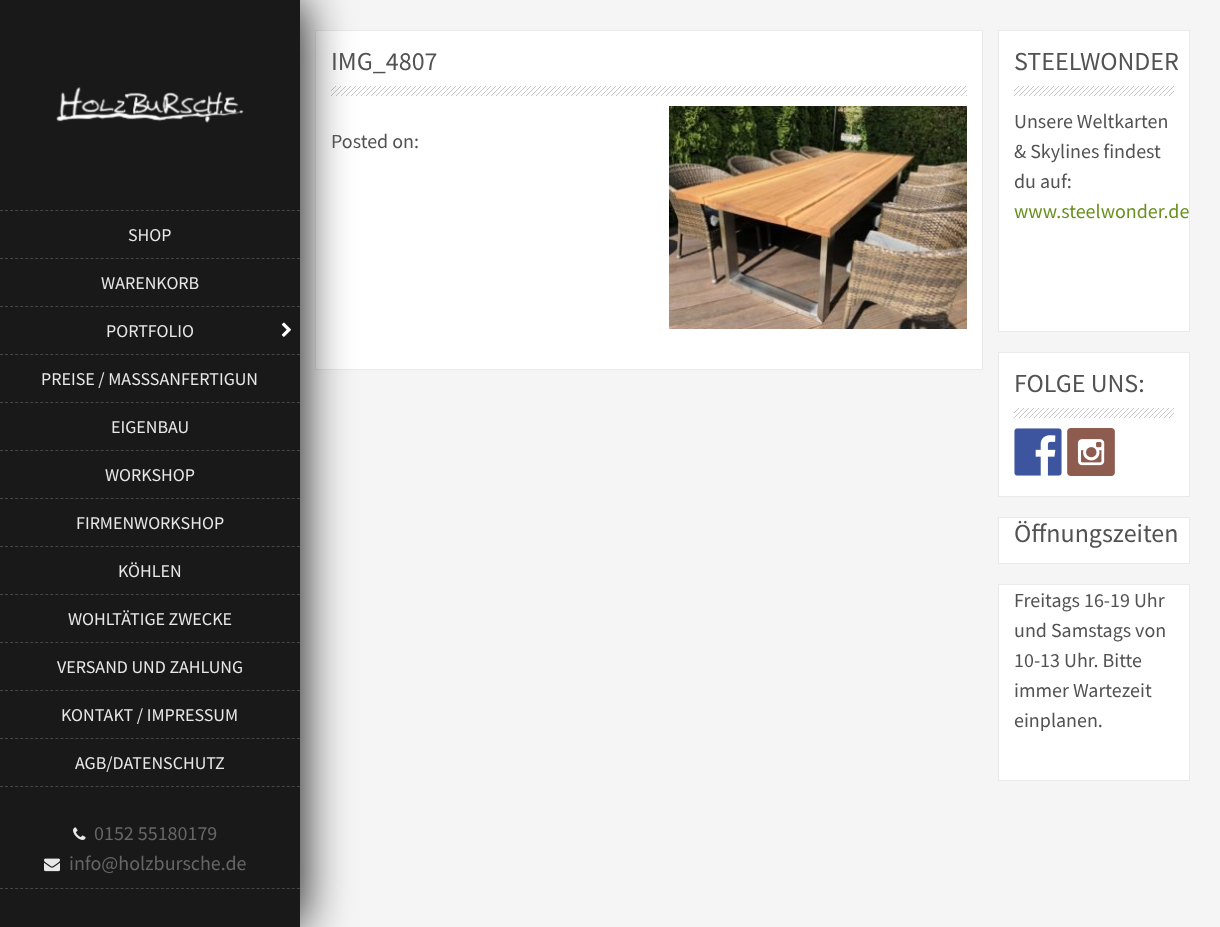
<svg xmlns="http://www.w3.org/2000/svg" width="1220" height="927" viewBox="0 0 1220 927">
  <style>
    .t1 { font: 18px Source Sans Pro; fill: #e8e8e8; }
    .t2 { font: 20px Source Sans Pro; fill: #666; }
    .t3 { font: 26px Source Sans Pro; fill: #525252; }
    .t4 { font: 20px Source Sans Pro; fill: #525252; }
    .t5 { font: 20px Source Sans Pro; fill: #699120; }
  </style>
  <rect width="100%" height="100%" fill="#f5f5f5"/>
  <rect x="315.5" y="30.5" width="667" height="339" fill="#fff" stroke="#eaeaea"/>
  <image x="331" y="86" width="636" height="10" href="images/5.png"/>
  <rect x="0" y="0" width="300" height="927" fill="#000" filter="blur(25px)"/>
  <rect x="0" y="0" width="300" height="927" fill="#191919"/>
  <image x="56" y="87" width="188" height="36" href="images/1.png"/>
  <path d="M0 210.5H300" fill="none" stroke="#464646" stroke-dasharray="3 2.03"/>
  <text x="128" y="241" class="t1">SHOP</text>
  <path d="M0 258.5H300" fill="none" stroke="#464646" stroke-dasharray="3 2.03"/>
  <text x="101" y="289" class="t1">WARENKORB</text>
  <path d="M0 306.5H300" fill="none" stroke="#464646" stroke-dasharray="3 2.03"/>
  <text x="106" y="337" class="t1">PORTFOLIO</text>
  <image x="281" y="322" width="10" height="15" href="images/2.png"/>
  <path d="M0 354.5H300" fill="none" stroke="#464646" stroke-dasharray="3 2.03"/>
  <text x="41" y="385" class="t1">PREISE / MASSSANFERTIGUN</text>
  <path d="M0 402.5H300" fill="none" stroke="#464646" stroke-dasharray="3 2.03"/>
  <text x="111" y="433" class="t1">EIGENBAU</text>
  <path d="M0 450.5H300" fill="none" stroke="#464646" stroke-dasharray="3 2.03"/>
  <text x="105" y="481" class="t1">WORKSHOP</text>
  <path d="M0 498.5H300" fill="none" stroke="#464646" stroke-dasharray="3 2.03"/>
  <text x="76" y="529" class="t1">FIRMENWORKSHOP</text>
  <path d="M0 546.5H300" fill="none" stroke="#464646" stroke-dasharray="3 2.03"/>
  <text x="118" y="577" class="t1">KÖHLEN</text>
  <path d="M0 594.5H300" fill="none" stroke="#464646" stroke-dasharray="3 2.03"/>
  <text x="68" y="625" class="t1">WOHLTÄTIGE ZWECKE</text>
  <path d="M0 642.5H300" fill="none" stroke="#464646" stroke-dasharray="3 2.03"/>
  <text x="57" y="673" class="t1">VERSAND UND ZAHLUNG</text>
  <path d="M0 690.5H300" fill="none" stroke="#464646" stroke-dasharray="3 2.03"/>
  <text x="61" y="721" class="t1">KONTAKT / IMPRESSUM</text>
  <path d="M0 738.5H300" fill="none" stroke="#464646" stroke-dasharray="3 2.03"/>
  <path d="M0 786.5H300" fill="none" stroke="#464646" stroke-dasharray="3 2.03"/>
  <text x="75" y="769" class="t1">AGB/DATENSCHUTZ</text>
  <path d="M0 888.5H300" fill="none" stroke="#464646" stroke-dasharray="3 2.03"/>
  <image x="73" y="827" width="13" height="13" href="images/3.png"/>
  <text x="94" y="840" class="t2">0152 55180179</text>
  <image x="44" y="858" width="16" height="14" href="images/4.png"/>
  <text x="69" y="870" class="t2">info@holzbursche.de</text>
  <text x="331" y="70" class="t3">IMG_4807</text>
  <text x="331" y="148" class="t4">Posted on:</text>
  <image x="669" y="106" width="298" height="223" href="images/6.png"/>
  <rect x="998.5" y="30.5" width="191" height="301" fill="#fff" stroke="#eaeaea"/>
  <text x="1014" y="70" class="t3">STEELWONDER</text>
  <image x="1014" y="86" width="160" height="10" href="images/7.png"/>
  <text x="1014" y="128" class="t4">Unsere Weltkarten</text>
  <text x="1014" y="158" class="t4">&amp; Skylines findest</text>
  <text x="1014" y="188" class="t4">du auf:</text>
  <text x="1014" y="218" class="t5">www.steelwonder.de</text>
  <rect x="998.5" y="352.5" width="191" height="144" fill="#fff" stroke="#eaeaea"/>
  <text x="1014" y="392" class="t3">FOLGE UNS:</text>
  <image x="1014" y="408" width="160" height="10" href="images/7.png"/>
  <image x="1014" y="428" width="48" height="48" href="images/8.png"/>
  <image x="1067" y="428" width="48" height="48" href="images/9.png"/>
  <rect x="998.5" y="517.5" width="191" height="46" fill="#fff" stroke="#eaeaea"/>
  <text x="1014" y="542" class="t3">Öffnungszeiten</text>
  <rect x="998.5" y="584.5" width="191" height="196" fill="#fff" stroke="#eaeaea"/>
  <text x="1014" y="607" class="t4">Freitags 16-19 Uhr</text>
  <text x="1014" y="637" class="t4">und Samstags von</text>
  <text x="1014" y="667" class="t4">10-13 Uhr. Bitte</text>
  <text x="1014" y="697" class="t4">immer Wartezeit</text>
  <text x="1014" y="727" class="t4">einplanen.</text>
</svg>
